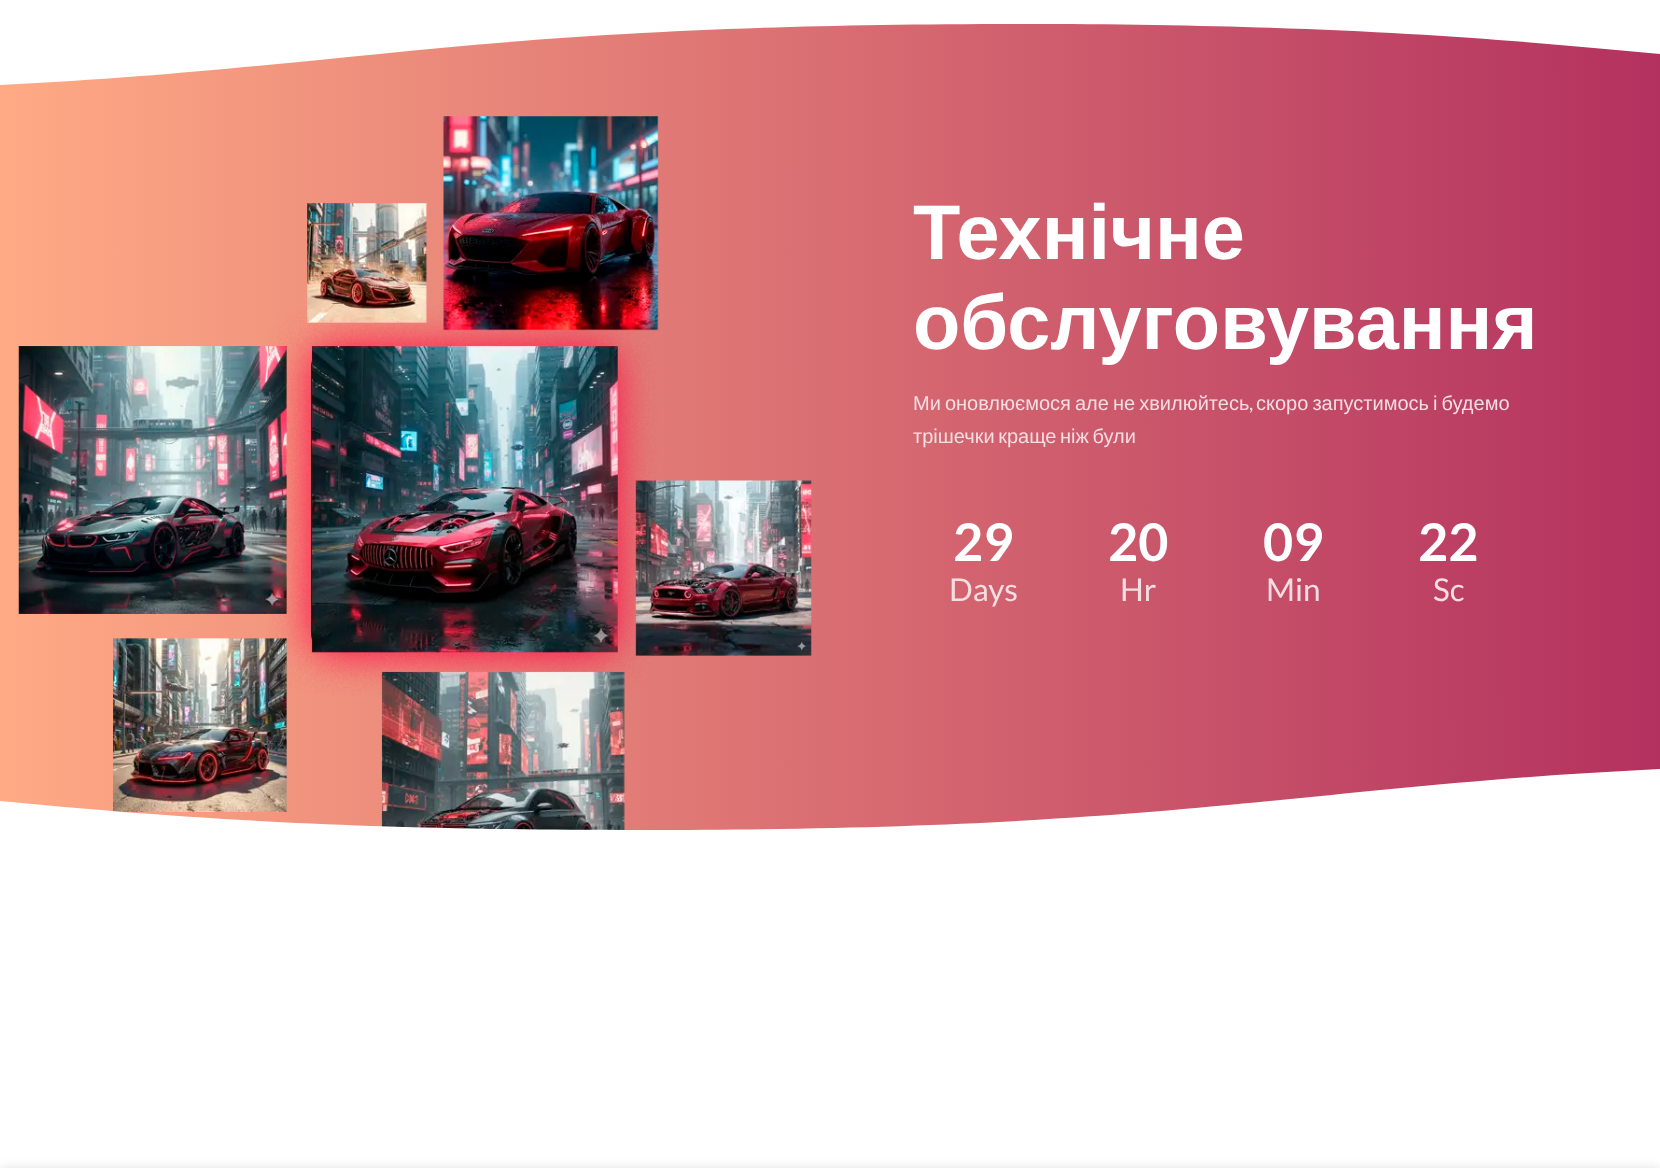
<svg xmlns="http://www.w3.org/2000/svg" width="1660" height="1168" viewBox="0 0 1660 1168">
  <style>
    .t1 { font: bold 77.5px Liberation Sans; fill: #fff; }
    .t2 { font: 20px Liberation Sans; fill: #f5dee2; }
    .t3 { font: 20px Lato; fill: #f5dee2; }
    .t4 { font: bold 52px Lato; fill: #fff; }
    .t5 { font: 31.5px Lato; fill: #f5dee2; }
  </style>
  <defs>
    <linearGradient id="g1" gradientUnits="userSpaceOnUse" x1="0" y1="428" x2="1660" y2="427"><stop offset="0" stop-color="#ffaa85"/><stop offset="1" stop-color="#b3315f"/></linearGradient>
    <clipPath id="clip1"><rect x="0" y="769" width="1660" height="86"/></clipPath>
  </defs>
  <rect width="100%" height="100%" fill="#fff"/>
  <rect x="0" y="24" width="1660" height="806" fill="url(#g1)"/>
  <path d="M0-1V85C365 67 476 24 1019 24C1331 24 1502 39 1660 54V-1Z" fill="#fff"/>
  <image x="18" y="116" width="794" height="714" href="images/1.png"/>
  <text x="913" y="259" class="t1">Технічне</text>
  <text x="913" y="349" class="t1">обслуговування</text>
  <text x="913" y="410" word-spacing="-1.5" class="t2">Ми оновлюємося але не хвилюйтесь</text>
  <text x="1249" y="410" class="t3">,</text>
  <text x="1256" y="410" word-spacing="-1.5" class="t2">скоро запустимось і будемо</text>
  <text x="913" y="443" word-spacing="-2" class="t2">трішечки краще ніж були</text>
  <text x="953" y="561" class="t4">29</text>
  <text x="949" y="601" class="t5">Days</text>
  <text x="1108" y="561" class="t4">20</text>
  <text x="1120" y="601" class="t5">Hr</text>
  <text x="1263" y="561" class="t4">09</text>
  <text x="1266" y="601" class="t5">Min</text>
  <text x="1418" y="561" class="t4">22</text>
  <text x="1433" y="601" class="t5">Sc</text>
  <g clip-path="url(#clip1)">
    <path d="M1660 856V769C1291 787 1184 830 641 830C329 830 158 816 0 801V856Z" fill="#fff"/>
  </g>
  <rect x="0" y="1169" width="1660" height="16" fill="#00000024" filter="blur(5.5px)"/>
</svg>
